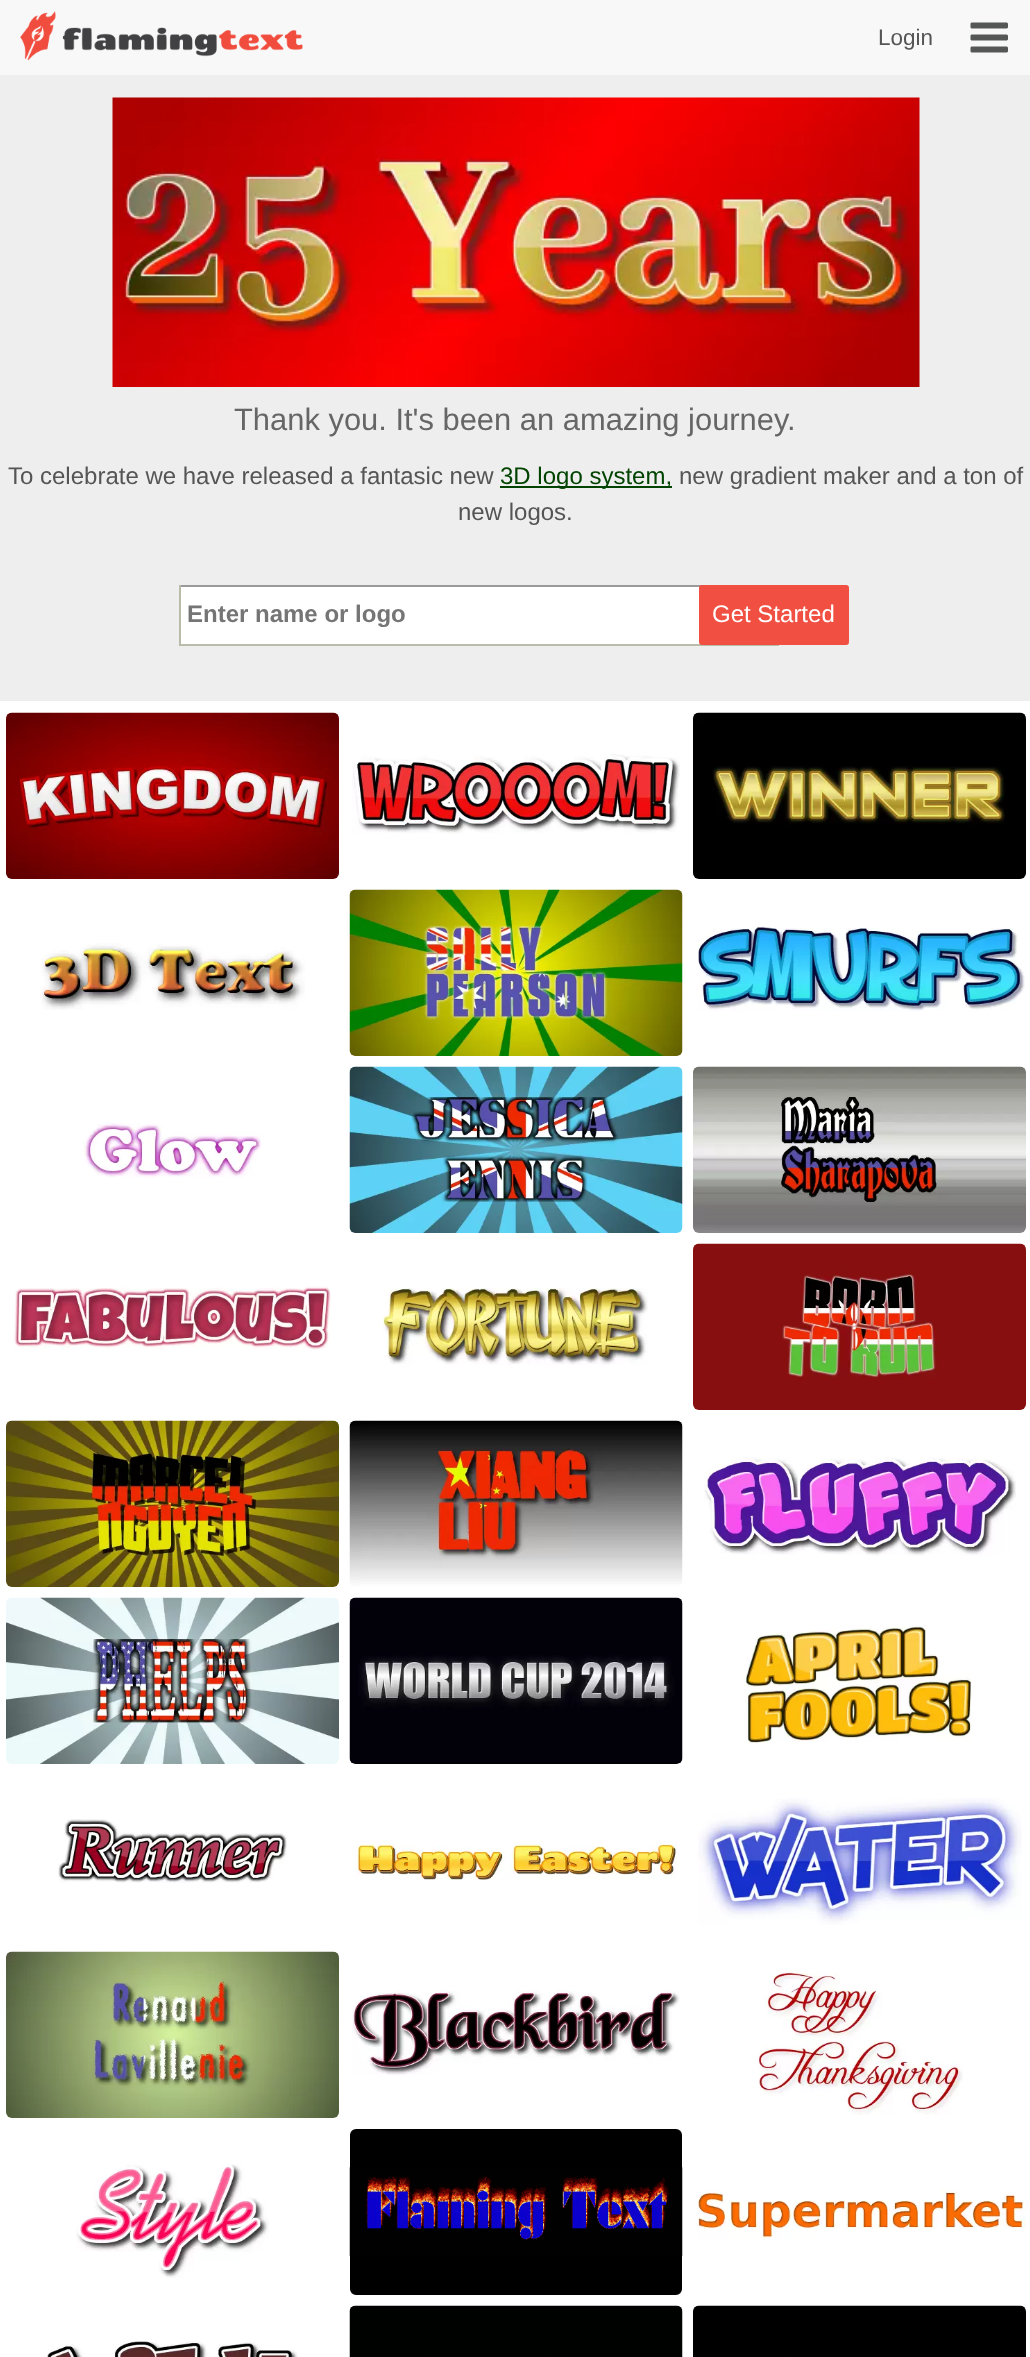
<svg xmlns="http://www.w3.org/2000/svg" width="1030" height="2357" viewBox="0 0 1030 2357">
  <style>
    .t1 { font: 22.5px Liberation Sans; fill: #555; }
    .t2 { font: 30.9px Liberation Sans; fill: #666; }
    .t3 { font: 24px Liberation Sans; fill: #555; }
    .t4 { font: 24px Liberation Sans; fill: #040; }
    .t5 { font: bold 24px Liberation Sans; fill: #757575; }
    .t6 { font: 24px Liberation Sans; fill: #fff; }
  </style>
  <rect width="100%" height="100%" fill="#fff"/>
  <rect x="0" y="0" width="1030" height="75" fill="#f8f8f8"/>
  <image x="20" y="11" width="283" height="49" href="images/1.png"/>
  <text x="878" y="45" class="t1">Login</text>
  <image x="970" y="22" width="38" height="31" href="images/2.png"/>
  <rect x="0" y="75" width="1030" height="626" fill="#eee"/>
  <image x="112" y="97" width="808" height="290" href="images/3.png"/>
  <text x="234" y="430" class="t2">Thank you. It's been an amazing journey.</text>
  <text x="8" y="484" class="t3">To celebrate we have released a fantasic new</text>
  <rect x="500" y="486" width="172" height="2" fill="#040"/>
  <text x="500" y="484" class="t4">3D logo system,</text>
  <text x="679" y="484" class="t3">new gradient maker and a ton of</text>
  <text x="458" y="520" class="t3">new logos.</text>
  <rect x="181" y="587" width="519" height="57" fill="#fff"/>
  <rect x="179" y="585" width="523" height="2" fill="#999"/>
  <rect x="179" y="644" width="600" height="2" fill="#bba"/>
  <rect x="179" y="585" width="2" height="60" fill="#bba"/>
  <text x="187" y="622" class="t5">Enter name or logo</text>
  <rect x="700" y="586" width="148" height="58" rx="2" fill="#f04f41" stroke="#f04f41" stroke-width="2"/>
  <text x="712" y="622" class="t6">Get Started</text>
  <image x="6" y="712" width="333" height="167" href="images/4.png"/>
  <image x="352" y="754" width="328" height="80" href="images/5.png"/>
  <image x="693" y="712" width="333" height="167" href="images/6.png"/>
  <image x="40" y="943" width="265" height="67" href="images/7.png"/>
  <image x="349" y="889" width="334" height="167" href="images/8.png"/>
  <image x="698" y="925" width="327" height="86" href="images/9.png"/>
  <image x="83" y="1122" width="178" height="56" href="images/10.png"/>
  <image x="349" y="1066" width="334" height="167" href="images/11.png"/>
  <image x="693" y="1066" width="333" height="167" href="images/12.png"/>
  <image x="13" y="1286" width="318" height="64" href="images/13.png"/>
  <image x="382" y="1287" width="266" height="78" href="images/14.png"/>
  <image x="693" y="1243" width="333" height="167" href="images/15.png"/>
  <image x="6" y="1420" width="333" height="167" href="images/16.png"/>
  <image x="349" y="1420" width="334" height="167" href="images/17.png"/>
  <image x="704" y="1457" width="312" height="99" href="images/18.png"/>
  <image x="6" y="1597" width="333" height="167" href="images/19.png"/>
  <rect x="349" y="1597" width="334" height="168" rx="7" fill="#000" stroke="#fff" stroke-width="2"/>
  <image x="349" y="1597" width="334" height="167" href="images/20.png"/>
  <image x="743" y="1625" width="229" height="119" href="images/21.png"/>
  <image x="58" y="1819" width="229" height="64" href="images/22.png"/>
  <image x="355" y="1840" width="322" height="40" href="images/23.png"/>
  <image x="698" y="1798" width="324" height="127" href="images/24.png"/>
  <image x="6" y="1951" width="333" height="167" href="images/25.png"/>
  <image x="352" y="1990" width="328" height="85" href="images/26.png"/>
  <image x="757" y="1968" width="206" height="147" href="images/27.png"/>
  <image x="76" y="2164" width="193" height="114" href="images/28.png"/>
  <rect x="349" y="2128" width="334" height="168" rx="7" fill="#000" stroke="#fff" stroke-width="2"/>
  <image x="349" y="2167" width="334" height="89" href="images/29.png"/>
  <image x="698" y="2190" width="328" height="50" href="images/30.png"/>
  <image x="47" y="2341" width="251" height="16" href="images/31.png"/>
  <image x="349" y="2305" width="334" height="52" href="images/32.png"/>
  <image x="693" y="2305" width="333" height="52" href="images/33.png"/>
</svg>
